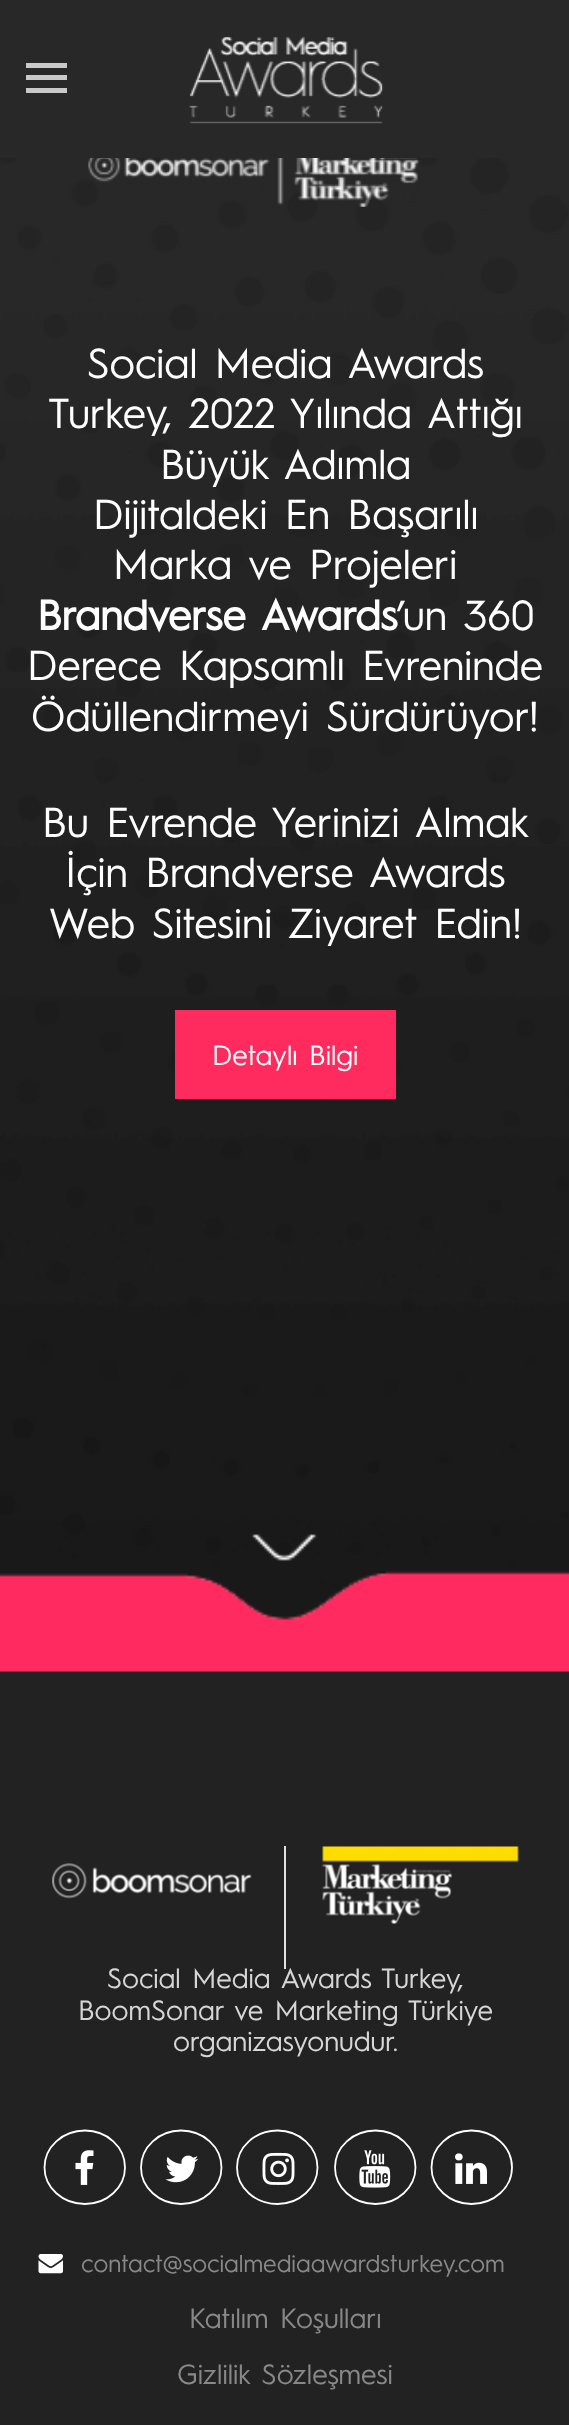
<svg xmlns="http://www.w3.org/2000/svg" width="569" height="2425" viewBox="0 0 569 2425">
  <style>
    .t1 { font: 42px 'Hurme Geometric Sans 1'; fill: #fff; }
    .t2 { font: bold 42px 'Hurme Geometric Sans 1'; fill: #fff; }
    .t3 { font: 28px 'Hurme Geometric Sans 1'; fill: #fff; }
    .t4 { font: 28px 'Hurme Geometric Sans 1'; fill: #d7d6d6; }
    .t5 { font: 24.5px 'Hurme Geometric Sans 1'; fill: #888; }
    .t6 { font: 28px 'Hurme Geometric Sans 1'; fill: #888; }
  </style>
  <rect width="100%" height="100%" fill="#222"/>
  <rect x="0" y="0" width="569" height="158" fill="#282828"/>
  <image x="188" y="36" width="195" height="88" href="images/1.png"/>
  <rect x="26" y="75" width="41" height="5" fill="#c9c9c9"/>
  <rect x="26" y="63" width="41" height="5" fill="#c9c9c9"/>
  <rect x="26" y="88" width="41" height="5" fill="#c9c9c9"/>
  <image x="0" y="158" width="569" height="1514" href="images/2.png"/>
  <image x="88" y="158" width="332" height="49" href="images/3.png"/>
  <text x="87" y="378" class="t1">Social Media Awards</text>
  <text x="48" y="428" class="t1">Turkey, 2022 Yılında Attığı</text>
  <text x="160" y="479" class="t1">Büyük Adımla</text>
  <text x="93" y="529" class="t1">Dijitaldeki En Başarılı</text>
  <text x="113" y="579" class="t1">Marka ve Projeleri</text>
  <text x="37" y="630" class="t2">Brandverse Awards</text>
  <text x="397" y="630" class="t1">’un 360</text>
  <text x="27" y="680" class="t1">Derece Kapsamlı Evreninde</text>
  <text x="31" y="731" class="t1">Ödüllendirmeyi Sürdürüyor!</text>
  <text x="42" y="837" class="t1">Bu Evrende Yerinizi Almak</text>
  <text x="65" y="887" class="t1">İçin Brandverse Awards</text>
  <text x="49" y="938" class="t1">Web Sitesini Ziyaret Edin!</text>
  <rect x="175" y="1010" width="221" height="89" fill="#ff2b5f"/>
  <text x="212" y="1065" class="t3">Detaylı Bilgi</text>
  <image x="52" y="1863" width="200" height="36" href="images/4.png"/>
  <rect x="284" y="1846" width="2" height="123" fill="#e0e0e0"/>
  <image x="322" y="1846" width="197" height="78" href="images/5.png"/>
  <text x="107" y="1988" class="t4">Social Media Awards Turkey,</text>
  <text x="78" y="2020" class="t4">BoomSonar ve Marketing Türkiye</text>
  <text x="173" y="2051" class="t4">organizasyonudur.</text>
  <path d="M85 2130.5C107 2130.5 125 2147 125 2167.5C125 2187.5 107 2204 85 2204C62.5 2204 44.5 2187.5 44.5 2167.5C44.5 2147 62.5 2130.5 85 2130.5Z" fill="none" stroke="#fff" stroke-width="1.8"/>
  <image x="75" y="2150" width="19" height="35" href="images/6.png"/>
  <path d="M181 2130.5C203.5 2130.5 221.5 2147 221.5 2167.5C221.5 2187.5 203.5 2204 181 2204C159 2204 141 2187.5 141 2167.5C141 2147 159 2130.5 181 2130.5Z" fill="none" stroke="#fff" stroke-width="1.8"/>
  <image x="165" y="2155" width="34" height="28" href="images/7.png"/>
  <path d="M277.5 2130.5C299.5 2130.5 317.5 2147 317.5 2167.5C317.5 2187.5 299.5 2204 277.5 2204C255 2204 237 2187.5 237 2167.5C237 2147 255 2130.5 277.5 2130.5Z" fill="none" stroke="#fff" stroke-width="1.8"/>
  <image x="262" y="2152" width="33" height="33" href="images/8.png"/>
  <path d="M375.5 2130.5C397.5 2130.5 415.5 2147 415.5 2167.5C415.5 2187.5 397.5 2204 375.5 2204C353 2204 335 2187.5 335 2167.5C335 2147 353 2130.5 375.5 2130.5Z" fill="none" stroke="#fff" stroke-width="1.8"/>
  <image x="359" y="2150" width="32" height="38" href="images/9.png"/>
  <path d="M471.5 2130.5C494 2130.5 512 2147 512 2167.5C512 2187.5 494 2204 471.5 2204C449.5 2204 431.5 2187.5 431.5 2167.5C431.5 2147 449.5 2130.5 471.5 2130.5Z" fill="none" stroke="#fff" stroke-width="1.8"/>
  <image x="455" y="2153" width="32" height="31" href="images/10.png"/>
  <image x="38" y="2254" width="25" height="20" href="images/11.png"/>
  <text x="81" y="2272" class="t5">contact@socialmediaawardsturkey.com</text>
  <text x="189" y="2328" class="t6">Katılım Koşulları</text>
  <text x="177" y="2384" class="t6">Gizlilik Sözleşmesi</text>
</svg>
